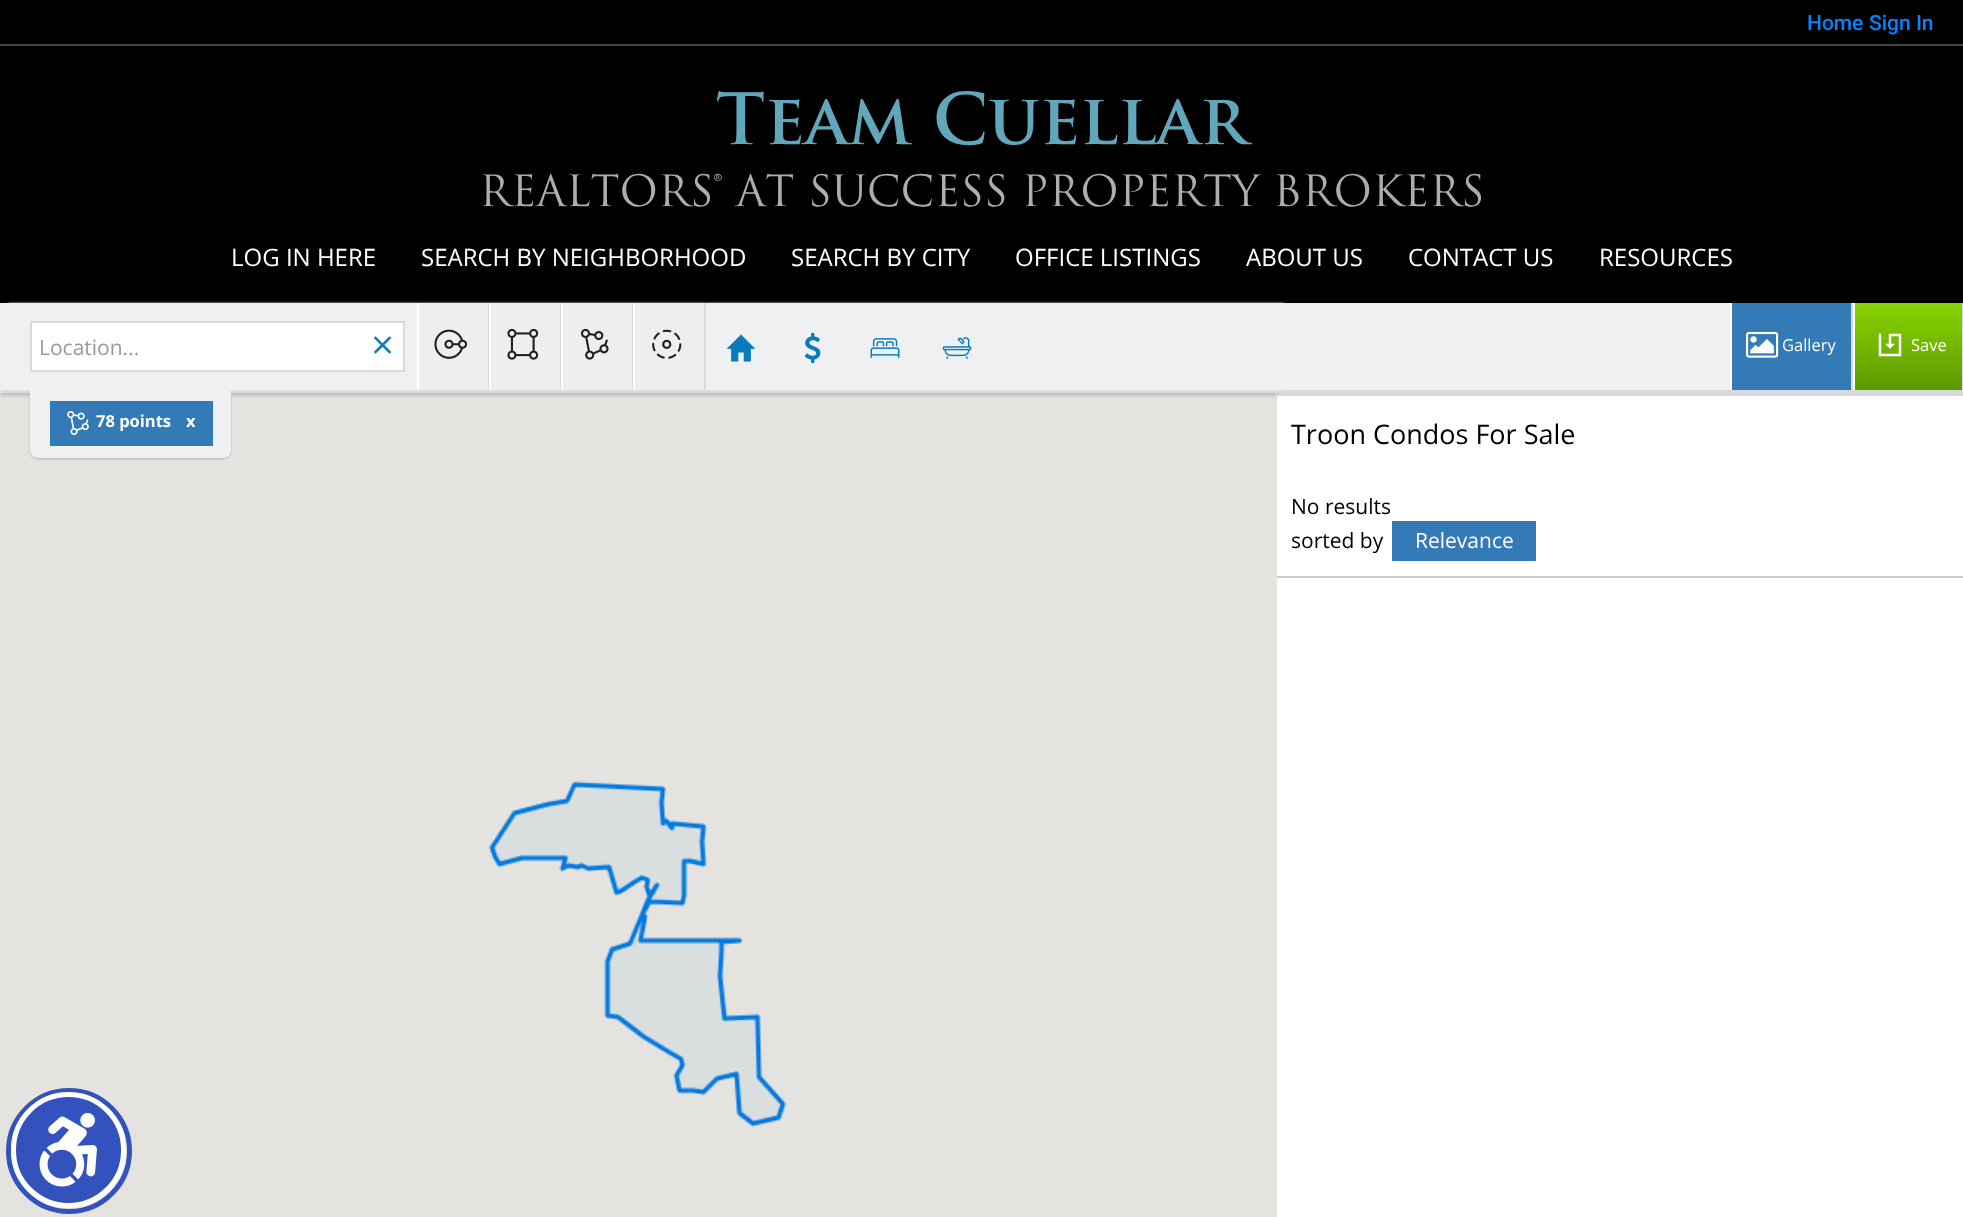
<svg xmlns="http://www.w3.org/2000/svg" width="1963" height="1217" viewBox="0 0 1963 1217">
  <style>
    .t1 { font: 500 21px Roboto; fill: #0084ff; }
    .t2 { font: bold 69px 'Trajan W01'; fill: #61a6bb; }
    .t3 { font: 42px 'Trajan W01'; fill: #adadad; }
    .t4 { font: 24px Open Sans; fill: #fff; }
    .t5 { font: 21px Open Sans; fill: #999; }
    .t6 { font: bold 16.5px Open Sans; fill: #fff; }
    .t7 { font: 16.5px Open Sans; fill: #fff; }
    .t8 { font: 27px Open Sans; fill: #000; }
    .t9 { font: 21px Open Sans; fill: #000; }
    .t10 { font: 21px Open Sans; fill: #fff; }
  </style>
  <defs>
    <linearGradient id="g1" gradientUnits="userSpaceOnUse" x1="1908" y1="303" x2="1908" y2="390"><stop offset="0.01" stop-color="#87d300"/><stop offset="1" stop-color="#5d9900"/></linearGradient>
  </defs>
  <rect width="100%" height="100%" fill="#000"/>
  <rect x="0" y="44" width="1963" height="2" fill="#444"/>
  <text x="1807" y="30" class="t1">Home</text>
  <text x="1869" y="30" class="t1">Sign In</text>
  <text x="716" y="144" class="t2">Team Cuellar</text>
  <text x="479" y="206" class="t3">REALTORS® AT SUCCESS PROPERTY BROKERS</text>
  <text x="231" y="266" class="t4">LOG IN HERE</text>
  <text x="421" y="266" class="t4">SEARCH BY NEIGHBORHOOD</text>
  <text x="791" y="266" class="t4">SEARCH BY CITY</text>
  <text x="1015" y="266" class="t4">OFFICE LISTINGS</text>
  <text x="1246" y="266" class="t4">ABOUT US</text>
  <text x="1408" y="266" class="t4">CONTACT US</text>
  <text x="1599" y="266" class="t4">RESOURCES</text>
  <rect x="0" y="390" width="1963" height="827" fill="#fff"/>
  <rect x="0" y="393" width="1277" height="824" fill="#e5e3df"/>
  <path d="M1277 390V396H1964V309V390Z" fill="#d9d9d9"/>
  <rect x="1277" y="303" width="453" height="87" fill="#eff0f2"/>
  <rect x="0" y="309" width="1277" height="87" fill="#00000026" filter="blur(1.5px)"/>
  <rect x="8" y="303" width="1276" height="87" fill="#eff0f2f2" filter="blur(1px)"/>
  <rect x="0" y="303" width="1277" height="87" fill="#eff0f2"/>
  <rect x="31" y="322" width="373" height="49" fill="#fff" stroke="#dadada" stroke-width="2"/>
  <text x="39" y="355" class="t5">Location...</text>
  <image x="373" y="336" width="19" height="18" href="images/1.png"/>
  <rect x="419" y="303" width="69" height="87" fill="#eee"/>
  <rect x="488" y="303" width="1" height="87" fill="#dbdbdb"/>
  <rect x="417" y="303" width="2" height="87" fill="#fff"/>
  <image x="434" y="329" width="34" height="30" href="images/2.png"/>
  <rect x="491" y="303" width="69" height="87" fill="#eee"/>
  <rect x="560" y="303" width="1" height="87" fill="#dbdbdb"/>
  <rect x="489" y="303" width="2" height="87" fill="#fff"/>
  <image x="507" y="328" width="32" height="32" href="images/3.png"/>
  <rect x="563" y="303" width="69" height="87" fill="#eee"/>
  <rect x="632" y="303" width="1" height="87" fill="#dbdbdb"/>
  <rect x="561" y="303" width="2" height="87" fill="#fff"/>
  <image x="580" y="328" width="29" height="32" href="images/4.png"/>
  <rect x="635" y="303" width="69" height="87" fill="#eee"/>
  <rect x="704" y="303" width="2" height="87" fill="#dbdbdb"/>
  <rect x="633" y="303" width="2" height="87" fill="#fff"/>
  <image x="652" y="329" width="30" height="30" href="images/5.png"/>
  <image x="726" y="334" width="30" height="28" href="images/6.png"/>
  <image x="804" y="333" width="17" height="30" href="images/7.png"/>
  <image x="870" y="338" width="30" height="20" href="images/8.png"/>
  <image x="942" y="337" width="30" height="22" href="images/9.png"/>
  <rect x="30" y="390" width="201" height="69" rx="8" fill="#00000033" filter="blur(1px)"/>
  <path d="M30 389H231V450C231 454.5 227.5 458 223 458H38C33.5 458 30 454.5 30 450Z" fill="#eff0f2"/>
  <rect x="50" y="401" width="163" height="45" fill="#337ab7"/>
  <image x="67" y="411" width="22" height="24" href="images/10.png"/>
  <text x="96" y="427" class="t6">78 points</text>
  <text x="186" y="427" class="t6">x</text>
  <image x="488" y="781" width="255" height="173" href="images/11.png"/>
  <image x="604" y="954" width="183" height="173" href="images/12.png"/>
  <rect x="1732" y="303" width="119" height="87" fill="#337ab7"/>
  <rect x="1851" y="303" width="2" height="87" fill="#dbdbdb"/>
  <rect x="1730" y="303" width="2" height="87" fill="#fff"/>
  <image x="1746" y="331" width="33" height="27" href="images/13.png"/>
  <text x="1782" y="351" class="t7">Gallery</text>
  <rect x="1855" y="303" width="107" height="87" fill="url(#g1)"/>
  <rect x="1962" y="303" width="1" height="87" fill="#dbdbdb"/>
  <rect x="1853" y="303" width="2" height="87" fill="#fff"/>
  <image x="1878" y="333" width="24" height="24" href="images/14.png"/>
  <text x="1911" y="351" class="t7">Save</text>
  <rect x="1277" y="576" width="686" height="2" fill="#ccc"/>
  <text x="1291" y="444" class="t8">Troon Condos For Sale</text>
  <text x="1291" y="514" class="t9">No results</text>
  <text x="1291" y="548" class="t9">sorted by</text>
  <rect x="1392" y="521" width="144" height="40" fill="#337ab7"/>
  <text x="1415" y="548" class="t10">Relevance</text>
  <circle cx="69" cy="1151" r="60.5" fill="none" stroke="#3452bd" stroke-width="5"/>
  <rect x="13.5" y="1094.5" width="110" height="111" rx="55" fill="#3452bd" stroke="#fff" stroke-width="5"/>
  <image x="39" y="1113" width="58" height="74" href="images/15.png"/>
</svg>
